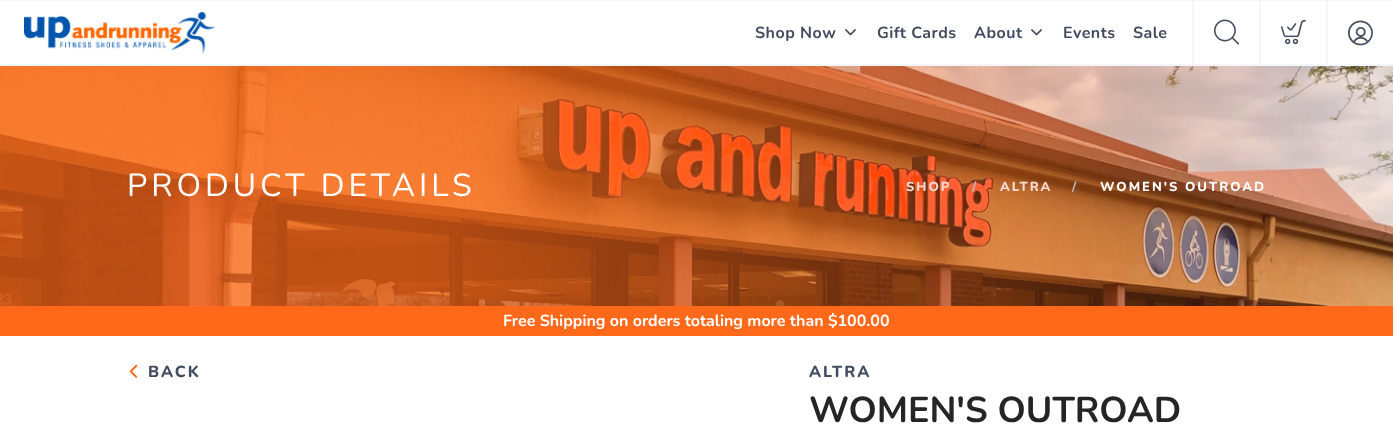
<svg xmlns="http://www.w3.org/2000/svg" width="1393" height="448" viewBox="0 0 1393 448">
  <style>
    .t1 { font: bold 16px Nunito; letter-spacing: 0.5px; fill: #434c5e; }
    .t2 { font: 32px Nunito; letter-spacing: 4px; fill: #fff; }
    .t3 { font: 800 13px Nunito; letter-spacing: 2px; fill: #f4dbd2; }
    .t4 { font: 800 13px Nunito; letter-spacing: 2px; fill: #bbb; }
    .t5 { font: 800 13px Nunito; letter-spacing: 2px; fill: #fff; }
    .t6 { font: bold 16px Nunito; fill: #fff; }
    .t7 { font: 800 16px Nunito; letter-spacing: 2px; fill: #434c5e; }
    .t8 { font: bold 36px Nunito; fill: #252525; }
  </style>
  <rect width="100%" height="100%" fill="#fff"/>
  <rect x="0" y="0" width="1393" height="1" fill="#f5f6fa"/>
  <rect x="0" y="64" width="1393" height="2" fill="#f5f6fa"/>
  <image x="24" y="12" width="191" height="42" href="images/1.png"/>
  <text x="755" y="38" class="t1">Shop Now</text>
  <image x="845" y="29" width="11" height="7" href="images/2.png"/>
  <text x="877" y="38" class="t1">Gift Cards</text>
  <text x="974" y="38" class="t1">About</text>
  <image x="1031" y="29" width="11" height="7" href="images/2.png"/>
  <text x="1063" y="38" class="t1">Events</text>
  <text x="1133" y="38" class="t1">Sale</text>
  <rect x="1192" y="1" width="2" height="65" fill="#f5f6fa"/>
  <image x="1214" y="19" width="26" height="26" href="images/3.png"/>
  <rect x="1259" y="1" width="2" height="65" fill="#f5f6fa"/>
  <image x="1281" y="20" width="25" height="25" href="images/4.png"/>
  <rect x="1326" y="1" width="2" height="65" fill="#f5f6fa"/>
  <image x="1348" y="20" width="25" height="26" href="images/5.png"/>
  <image x="0" y="66" width="1393" height="240" href="images/6.png"/>
  <text x="127" y="196" class="t2">PRODUCT DETAILS</text>
  <text x="906" y="191" class="t3">SHOP</text>
  <text x="972" y="191" class="t4">/</text>
  <text x="1000" y="191" class="t3">ALTRA</text>
  <text x="1072" y="191" class="t4">/</text>
  <text x="1100" y="191" class="t5">WOMEN'S OUTROAD</text>
  <rect x="0" y="306" width="1393" height="30" fill="#ff6919"/>
  <text x="503" y="326" class="t6">Free Shipping on orders totaling more than $100.00</text>
  <image x="129" y="364" width="9" height="14" href="images/7.png"/>
  <text x="148" y="377" class="t7">BACK</text>
  <text x="809" y="377" class="t7">ALTRA</text>
  <text x="809" y="422" class="t8">WOMEN'S OUTROAD</text>
</svg>
